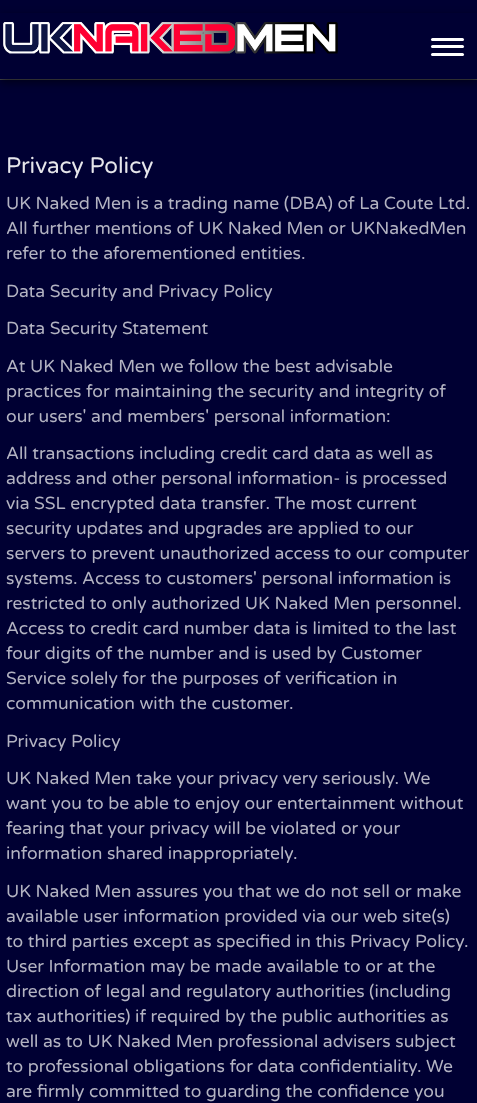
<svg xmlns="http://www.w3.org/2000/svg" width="477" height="1103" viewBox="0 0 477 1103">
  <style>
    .t1 { font: 22.5px Varela Round; fill: #e6e6eb; }
    .t2 { font: 17.5px Varela Round; fill: #b3b3c2; }
  </style>
  <rect width="100%" height="100%" fill="#003"/>
  <rect x="0" y="79" width="477" height="1" fill="#4d4d50"/>
  <rect x="0" y="16" width="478" height="67" fill="#00000080" filter="blur(4.5px)"/>
  <rect x="0" y="13" width="477" height="66" fill="#003"/>
  <image x="3" y="22" width="335" height="32" href="images/1.png"/>
  <rect x="431" y="38" width="33" height="3" rx="1.5" fill="#fff"/>
  <rect x="431" y="45" width="33" height="3" rx="1.5" fill="#fff"/>
  <rect x="431" y="53" width="33" height="3" rx="1.5" fill="#fff"/>
  <text x="6" y="173" class="t1">Privacy Policy</text>
  <text x="6" y="209" class="t2">UK Naked Men is a trading name (DBA) of La Coute Ltd.</text>
  <text x="6" y="234" class="t2">All further mentions of UK Naked Men or UKNakedMen</text>
  <text x="6" y="259" class="t2">refer to the aforementioned entities.</text>
  <text x="6" y="297" class="t2">Data Security and Privacy Policy</text>
  <text x="6" y="334" class="t2">Data Security Statement</text>
  <text x="6" y="372" class="t2">At UK Naked Men we follow the best advisable</text>
  <text x="6" y="397" class="t2">practices for maintaining the security and integrity of</text>
  <text x="6" y="422" class="t2">our users' and members' personal information:</text>
  <text x="6" y="459" class="t2">All transactions including credit card data as well as</text>
  <text x="6" y="484" class="t2">address and other personal information- is processed</text>
  <text x="6" y="509" class="t2">via SSL encrypted data transfer. The most current</text>
  <text x="6" y="534" class="t2">security updates and upgrades are applied to our</text>
  <text x="6" y="559" class="t2">servers to prevent unauthorized access to our computer</text>
  <text x="6" y="584" class="t2">systems. Access to customers' personal information is</text>
  <text x="6" y="609" class="t2">restricted to only authorized UK Naked Men personnel.</text>
  <text x="6" y="634" class="t2">Access to credit card number data is limited to the last</text>
  <text x="6" y="659" class="t2">four digits of the number and is used by Customer</text>
  <text x="6" y="684" class="t2">Service solely for the purposes of verification in</text>
  <text x="6" y="709" class="t2">communication with the customer.</text>
  <text x="6" y="747" class="t2">Privacy Policy</text>
  <text x="6" y="784" class="t2">UK Naked Men take your privacy very seriously. We</text>
  <text x="6" y="809" class="t2">want you to be able to enjoy our entertainment without</text>
  <text x="6" y="834" class="t2">fearing that your privacy will be violated or your</text>
  <text x="6" y="859" class="t2">information shared inappropriately.</text>
  <text x="6" y="897" class="t2">UK Naked Men assures you that we do not sell or make</text>
  <text x="6" y="922" class="t2">available user information provided via our web site(s)</text>
  <text x="6" y="947" class="t2">to third parties except as specified in this Privacy Policy.</text>
  <text x="6" y="972" class="t2">User Information may be made available to or at the</text>
  <text x="6" y="997" class="t2">direction of legal and regulatory authorities (including</text>
  <text x="6" y="1022" class="t2">tax authorities) if required by the public authorities as</text>
  <text x="6" y="1047" class="t2">well as to UK Naked Men professional advisers subject</text>
  <text x="6" y="1072" class="t2">to professional obligations for data confidentiality. We</text>
  <text x="6" y="1097" class="t2">are firmly committed to guarding the confidence you</text>
</svg>
